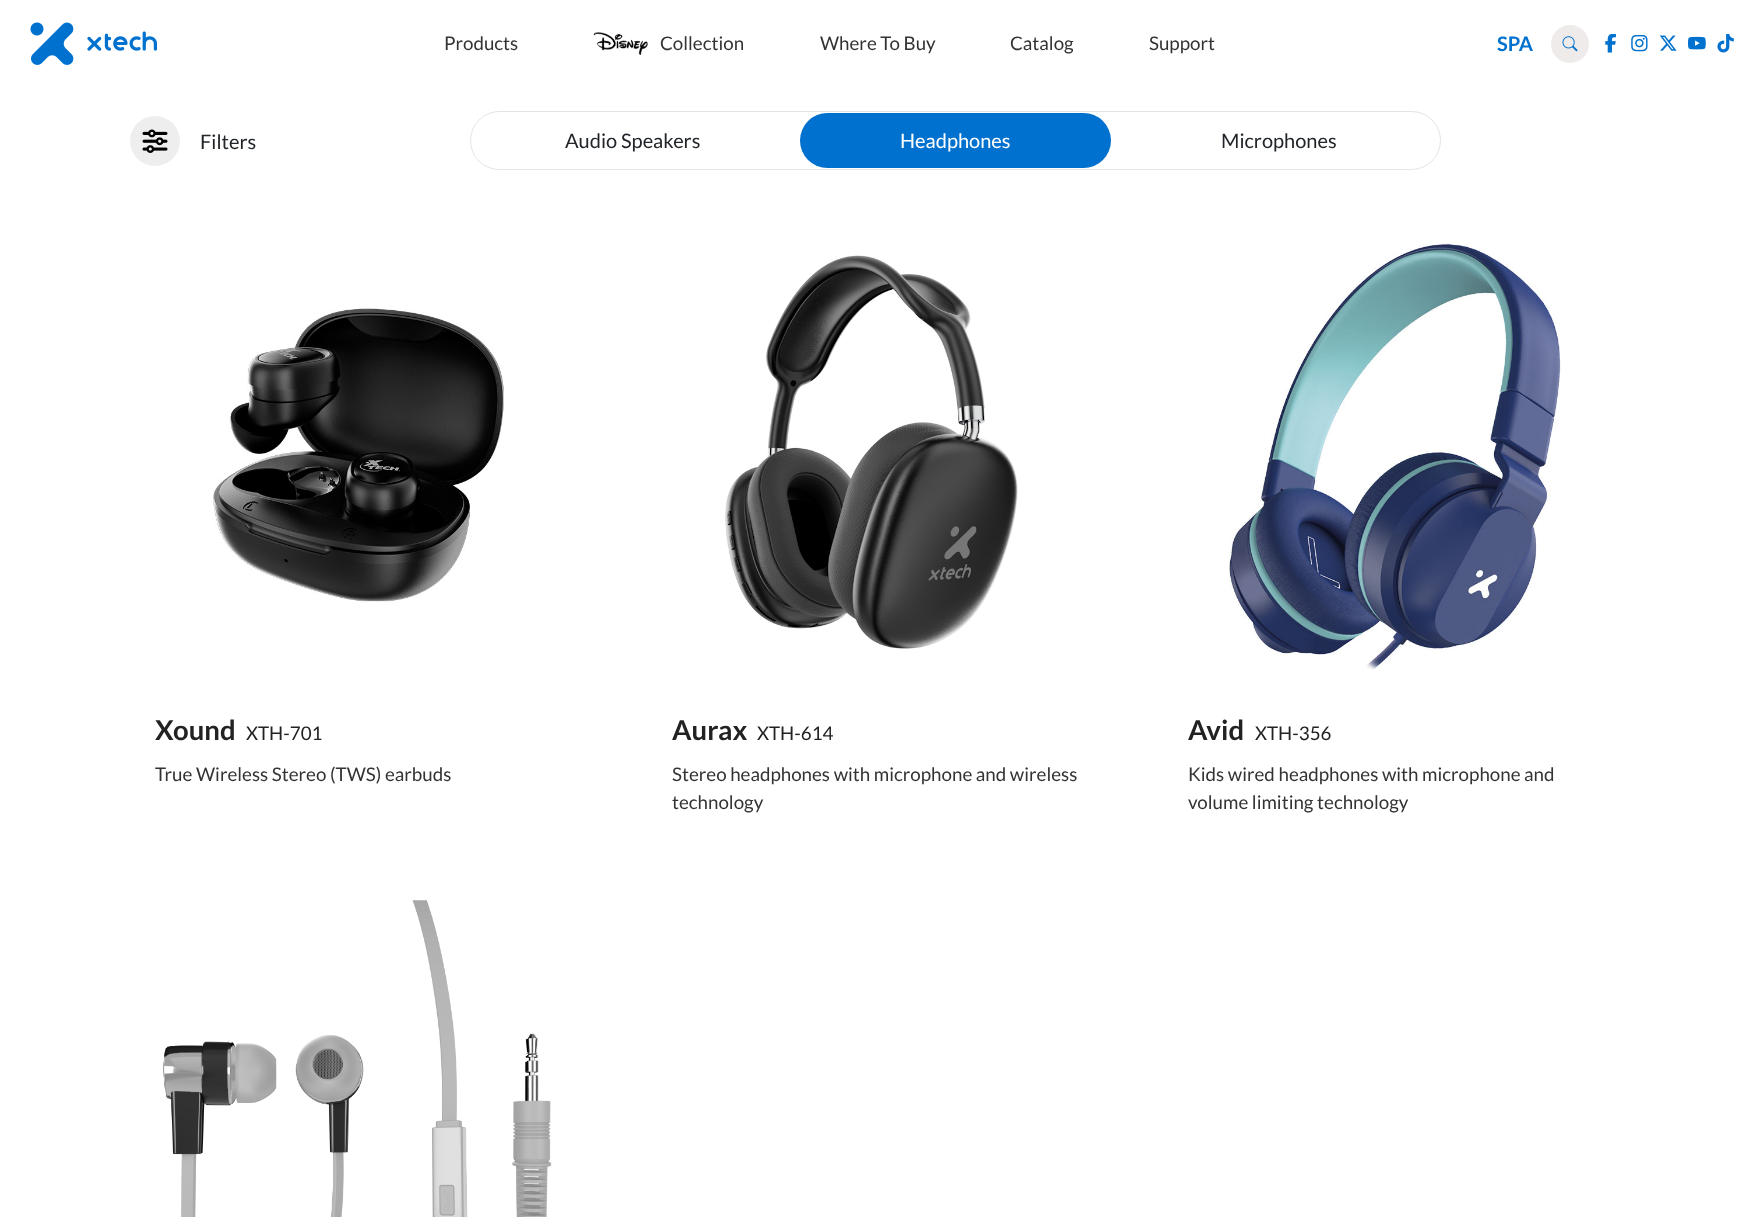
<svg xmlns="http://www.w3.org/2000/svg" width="1760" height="1217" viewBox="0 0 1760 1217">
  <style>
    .t1 { font: 18.75px Lato; fill: #333; }
    .t2 { font: bold 20px Lato; fill: #0071ce; }
    .t3 { font: 20px Lato; fill: #212529; }
    .t4 { font: 20px Lato; fill: #fff; }
    .t5 { font: bold 27.5px Lato; fill: #222; }
    .t6 { font: 18.75px Lato; fill: #222; }
  </style>
  <rect width="100%" height="100%" fill="#fff"/>
  <rect x="0" y="0" width="1760" height="86" fill="#333" filter="blur(0.5px)"/>
  <rect x="0" y="0" width="1760" height="86" fill="#fff"/>
  <image x="30" y="22" width="128" height="43" href="images/1.png"/>
  <text x="444" y="50" class="t1">Products</text>
  <image x="593" y="32" width="55" height="23" href="images/2.png"/>
  <text x="660" y="50" class="t1">Collection</text>
  <text x="820" y="50" class="t1">Where To Buy</text>
  <text x="1010" y="50" class="t1">Catalog</text>
  <text x="1149" y="50" class="t1">Support</text>
  <text x="1497" y="51" class="t2">SPA</text>
  <circle cx="1570" cy="44" r="19" fill="#eeebea"/>
  <image x="1562" y="36" width="16" height="16" href="images/3.png"/>
  <image x="1605" y="34" width="11" height="19" href="images/4.png"/>
  <image x="1631" y="35" width="17" height="17" href="images/5.png"/>
  <image x="1659" y="35" width="18" height="16" href="images/6.png"/>
  <image x="1688" y="36" width="18" height="14" href="images/7.png"/>
  <image x="1717" y="34" width="17" height="19" href="images/8.png"/>
  <circle cx="155" cy="141" r="25" fill="#eee"/>
  <image x="142" y="129" width="26" height="24" href="images/9.png"/>
  <text x="200" y="149" class="t3">Filters</text>
  <rect x="470.5" y="111.5" width="970" height="58" rx="29" fill="none" stroke="#e4e4e4"/>
  <text x="565" y="148" class="t3">Audio Speakers</text>
  <rect x="800" y="113" width="311" height="55" rx="27.5" fill="#0071ce"/>
  <text x="900" y="148" class="t4">Headphones</text>
  <text x="1221" y="148" class="t3">Microphones</text>
  <image x="213" y="308" width="291" height="294" href="images/10.png"/>
  <text x="155" y="740" class="t5">Xound</text>
  <text x="246" y="740" class="t6">XTH-701</text>
  <text x="155" y="781" class="t1">True Wireless Stereo (TWS) earbuds</text>
  <image x="725" y="255" width="293" height="394" href="images/11.png"/>
  <text x="672" y="740" class="t5">Aurax</text>
  <text x="757" y="740" class="t6">XTH-614</text>
  <text x="672" y="781" class="t1">Stereo headphones with microphone and wireless</text>
  <text x="672" y="809" class="t1">technology</text>
  <image x="1229" y="243" width="332" height="427" href="images/12.png"/>
  <text x="1188" y="740" class="t5">Avid</text>
  <text x="1255" y="740" class="t6">XTH-356</text>
  <text x="1188" y="781" class="t1">Kids wired headphones with microphone and</text>
  <text x="1188" y="809" class="t1">volume limiting technology</text>
  <image x="163" y="900" width="389" height="317" href="images/13.png"/>
</svg>
